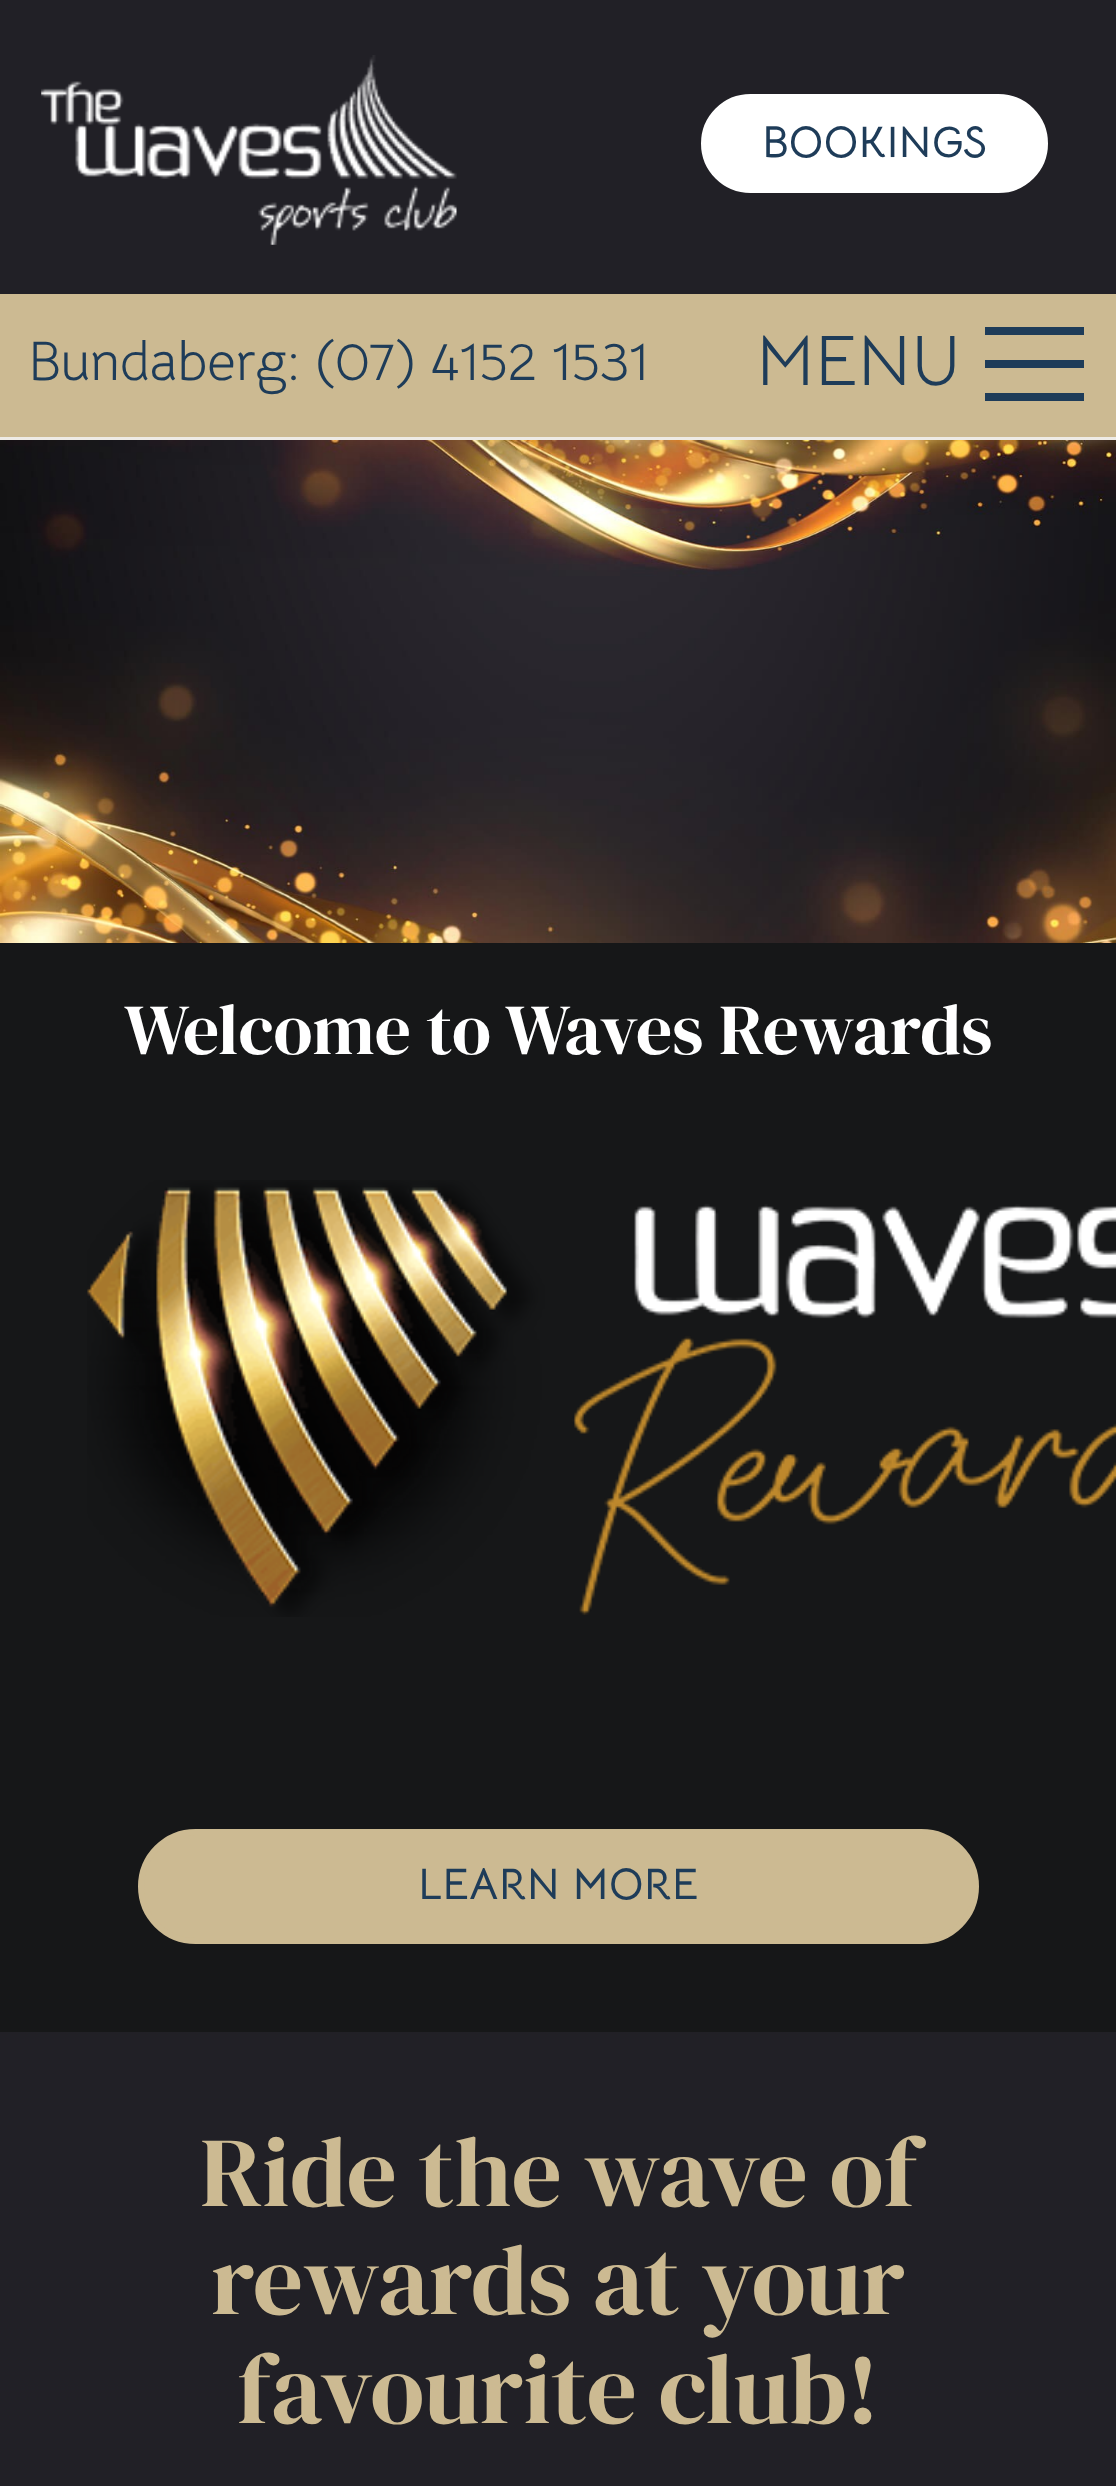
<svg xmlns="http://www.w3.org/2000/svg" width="1116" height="2486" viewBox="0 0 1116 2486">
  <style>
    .t1 { font: bold 44px Bellota Text; fill: #1e3c59; }
    .t2 { font: 55px Bellota Text; fill: #1e3c59; }
    .t3 { font: 71.5px Bellota Text; fill: #1e3c59; }
    .t4 { font: 71.5px DM Serif Display; fill: #fff; }
    .t5 { font: 99px DM Serif Display; fill: #ccba92; }
  </style>
  <rect width="100%" height="100%" fill="#212026"/>
  <image x="41" y="55" width="416" height="190" href="images/1.png"/>
  <rect x="704" y="97" width="341" height="93" rx="46.5" fill="#fff" stroke="#fff" stroke-width="6"/>
  <text x="762" y="157" class="t1">BOOKINGS</text>
  <rect x="0" y="294" width="1116" height="143" fill="#ccba92"/>
  <rect x="0" y="437" width="1116" height="3" fill="#eeebe5"/>
  <text x="28" y="380" class="t2">Bundaberg: (07) 4152 1531</text>
  <rect x="985" y="327" width="99" height="8" fill="#1e3c59"/>
  <text x="756" y="385" class="t3">MENU</text>
  <rect x="985" y="360" width="99" height="8" fill="#1e3c59"/>
  <rect x="985" y="393" width="99" height="8" fill="#1e3c59"/>
  <rect x="0" y="943" width="1116" height="1089" fill="#161718"/>
  <image x="0" y="440" width="1116" height="503" href="images/2.png"/>
  <text x="124" y="1054" class="t4">Welcome to Waves Rewards</text>
  <image x="87" y="1180" width="1029" height="437" href="images/3.png"/>
  <rect x="141" y="1832" width="835" height="109" rx="54.5" fill="#ccba92" stroke="#ccba92" stroke-width="6"/>
  <text x="418" y="1899" class="t1">LEARN MORE</text>
  <text x="200" y="2206" class="t5">Ride the wave of</text>
  <text x="211" y="2314" class="t5">rewards at your</text>
  <text x="237" y="2423" class="t5">favourite club!</text>
</svg>
